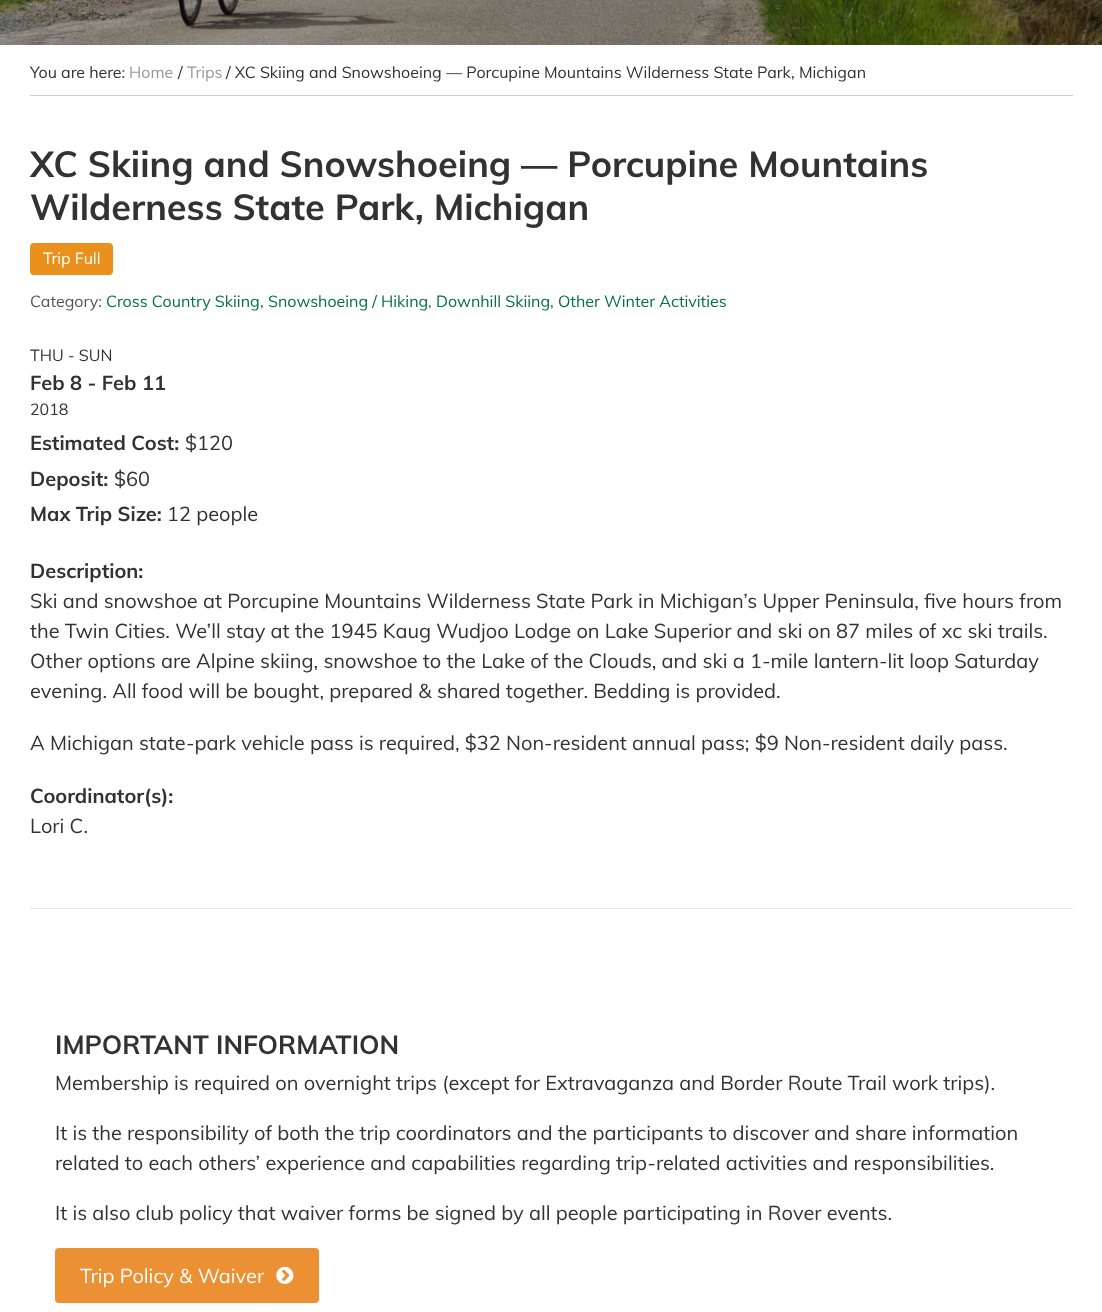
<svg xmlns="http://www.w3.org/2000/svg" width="1102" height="1312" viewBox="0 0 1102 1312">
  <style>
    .t1 { font: 16px Muli; fill: #323232; }
    .t2 { font: 16px Muli; fill: #999; }
    .t3 { font: bold 36px Muli; fill: #323232; }
    .t4 { font: 16px Muli; fill: #fff; }
    .t5 { font: 16px Muli; fill: #555; }
    .t6 { font: 16px Muli; fill: #007245; }
    .t7 { font: bold 20px Muli; fill: #323232; }
    .t8 { font: 20px Muli; fill: #323232; }
    .t9 { font: bold 26px Muli; fill: #323232; }
    .t10 { font: 20px Muli; fill: #fff; }
  </style>
  <rect width="100%" height="100%" fill="#fff"/>
  <image x="0" y="0" width="1102" height="45" href="images/1.png"/>
  <rect x="30" y="95" width="1043" height="1" fill="#ccc"/>
  <text x="30" y="78" class="t1">You are here:</text>
  <text x="129" y="78" class="t2">Home</text>
  <text x="178" y="78" class="t1">/</text>
  <text x="187" y="78" class="t2">Trips</text>
  <text x="226" y="78" class="t1">/ XC Skiing and Snowshoeing — Porcupine Mountains Wilderness State Park, Michigan</text>
  <rect x="30" y="908" width="1043" height="1" fill="#e6e6e6"/>
  <text x="30" y="177" class="t3">XC Skiing and Snowshoeing — Porcupine Mountains</text>
  <text x="30" y="220" class="t3">Wilderness State Park, Michigan</text>
  <rect x="30" y="243" width="83" height="32" rx="4" fill="#ea901c"/>
  <text x="43" y="264" class="t4">Trip Full</text>
  <text x="30" y="307" class="t5">Category:</text>
  <text x="106" y="307" class="t6">Cross Country Skiing</text>
  <text x="260" y="307" class="t5">,</text>
  <text x="268" y="307" class="t6">Snowshoeing / Hiking</text>
  <text x="428" y="307" class="t5">,</text>
  <text x="436" y="307" class="t6">Downhill Skiing</text>
  <text x="550" y="307" class="t5">,</text>
  <text x="558" y="307" class="t6">Other Winter Activities</text>
  <text x="30" y="361" class="t1">THU - SUN</text>
  <text x="30" y="390" class="t7">Feb 8 - Feb 11</text>
  <text x="30" y="415" class="t1">2018</text>
  <text x="30" y="450" class="t7">Estimated Cost:</text>
  <text x="185" y="450" class="t8">$120</text>
  <text x="30" y="486" class="t7">Deposit:</text>
  <text x="114" y="486" class="t8">$60</text>
  <text x="30" y="521" class="t7">Max Trip Size:</text>
  <text x="167" y="521" class="t8">12 people</text>
  <text x="30" y="578" class="t7">Description:</text>
  <text x="30" y="608" class="t8">Ski and snowshoe at Porcupine Mountains Wilderness State Park in Michigan’s Upper Peninsula, five hours from</text>
  <text x="30" y="638" class="t8">the Twin Cities. We’ll stay at the 1945 Kaug Wudjoo Lodge on Lake Superior and ski on 87 miles of xc ski trails.</text>
  <text x="30" y="668" class="t8">Other options are Alpine skiing, snowshoe to the Lake of the Clouds, and ski a 1-mile lantern-lit loop Saturday</text>
  <text x="30" y="698" class="t8">evening. All food will be bought, prepared &amp; shared together. Bedding is provided.</text>
  <text x="30" y="750" class="t8">A Michigan state-park vehicle pass is required, $32 Non-resident annual pass; $9 Non-resident daily pass.</text>
  <text x="30" y="803" class="t7">Coordinator(s):</text>
  <text x="30" y="833" class="t8">Lori C.</text>
  <text x="55" y="1054" class="t9">IMPORTANT INFORMATION</text>
  <text x="55" y="1090" class="t8">Membership is required on overnight trips (except for Extravaganza and Border Route Trail work trips).</text>
  <text x="55" y="1140" class="t8">It is the responsibility of both the trip coordinators and the participants to discover and share information</text>
  <text x="55" y="1170" class="t8">related to each others’ experience and capabilities regarding trip-related activities and responsibilities.</text>
  <text x="55" y="1220" class="t8">It is also club policy that waiver forms be signed by all people participating in Rover events.</text>
  <rect x="55" y="1248" width="264" height="55" rx="4" fill="#eb9133"/>
  <text x="80" y="1283" class="t10">Trip Policy &amp; Waiver</text>
  <image x="276" y="1266" width="18" height="18" href="images/2.png"/>
</svg>
